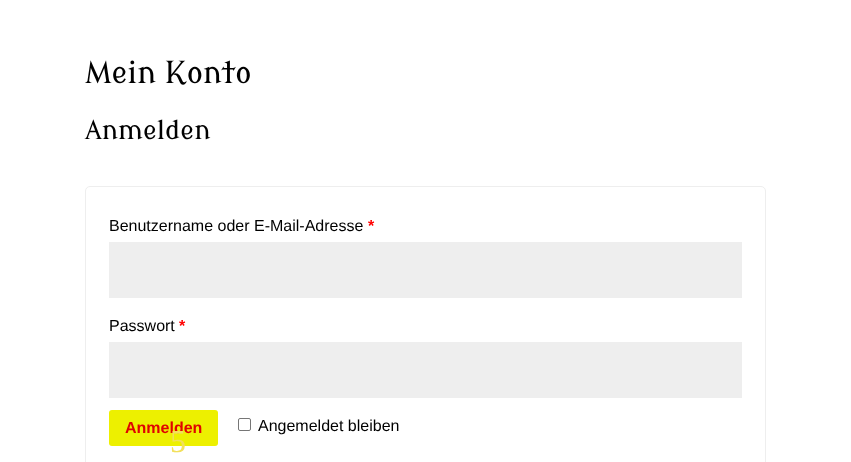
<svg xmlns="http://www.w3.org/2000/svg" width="851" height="462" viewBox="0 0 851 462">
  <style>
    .t1 { font: 30px Modern Antiqua; fill: #000; }
    .t2 { font: 26px Modern Antiqua; fill: #000; }
    .t3 { font: 16px Liberation Sans; fill: #000; }
    .t4 { font: bold 16px Liberation Sans; fill: #f00; }
    .t5 { font: bold 16px Liberation Sans; fill: #e00300; }
    .t6 { font: 32px Liberation Serif; fill: #f2e05c; }
  </style>
  <rect width="100%" height="100%" fill="#fff"/>
  <text x="85" y="83" class="t1">Mein Konto</text>
  <text x="85" y="139" class="t2">Anmelden</text>
  <rect x="85.5" y="186.5" width="680" height="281" rx="4.5" fill="none" stroke="#eee"/>
  <text x="109" y="231" class="t3">Benutzername oder E-Mail-Adresse</text>
  <text x="368" y="231" class="t4">*</text>
  <rect x="109" y="242" width="633" height="56" fill="#eee"/>
  <text x="109" y="331" class="t3">Passwort</text>
  <text x="179" y="331" class="t4">*</text>
  <rect x="109" y="342" width="633" height="56" fill="#eee"/>
  <rect x="109" y="410" width="109" height="36" rx="3" fill="#edf000"/>
  <text x="125" y="433" class="t5">Anmelden</text>
  <text x="170" y="452" class="t6">5</text>
  <rect x="238.5" y="418.5" width="12" height="12" rx="1.5" fill="none" stroke="#767676"/>
  <text x="258" y="431" class="t3">Angemeldet bleiben</text>
</svg>
